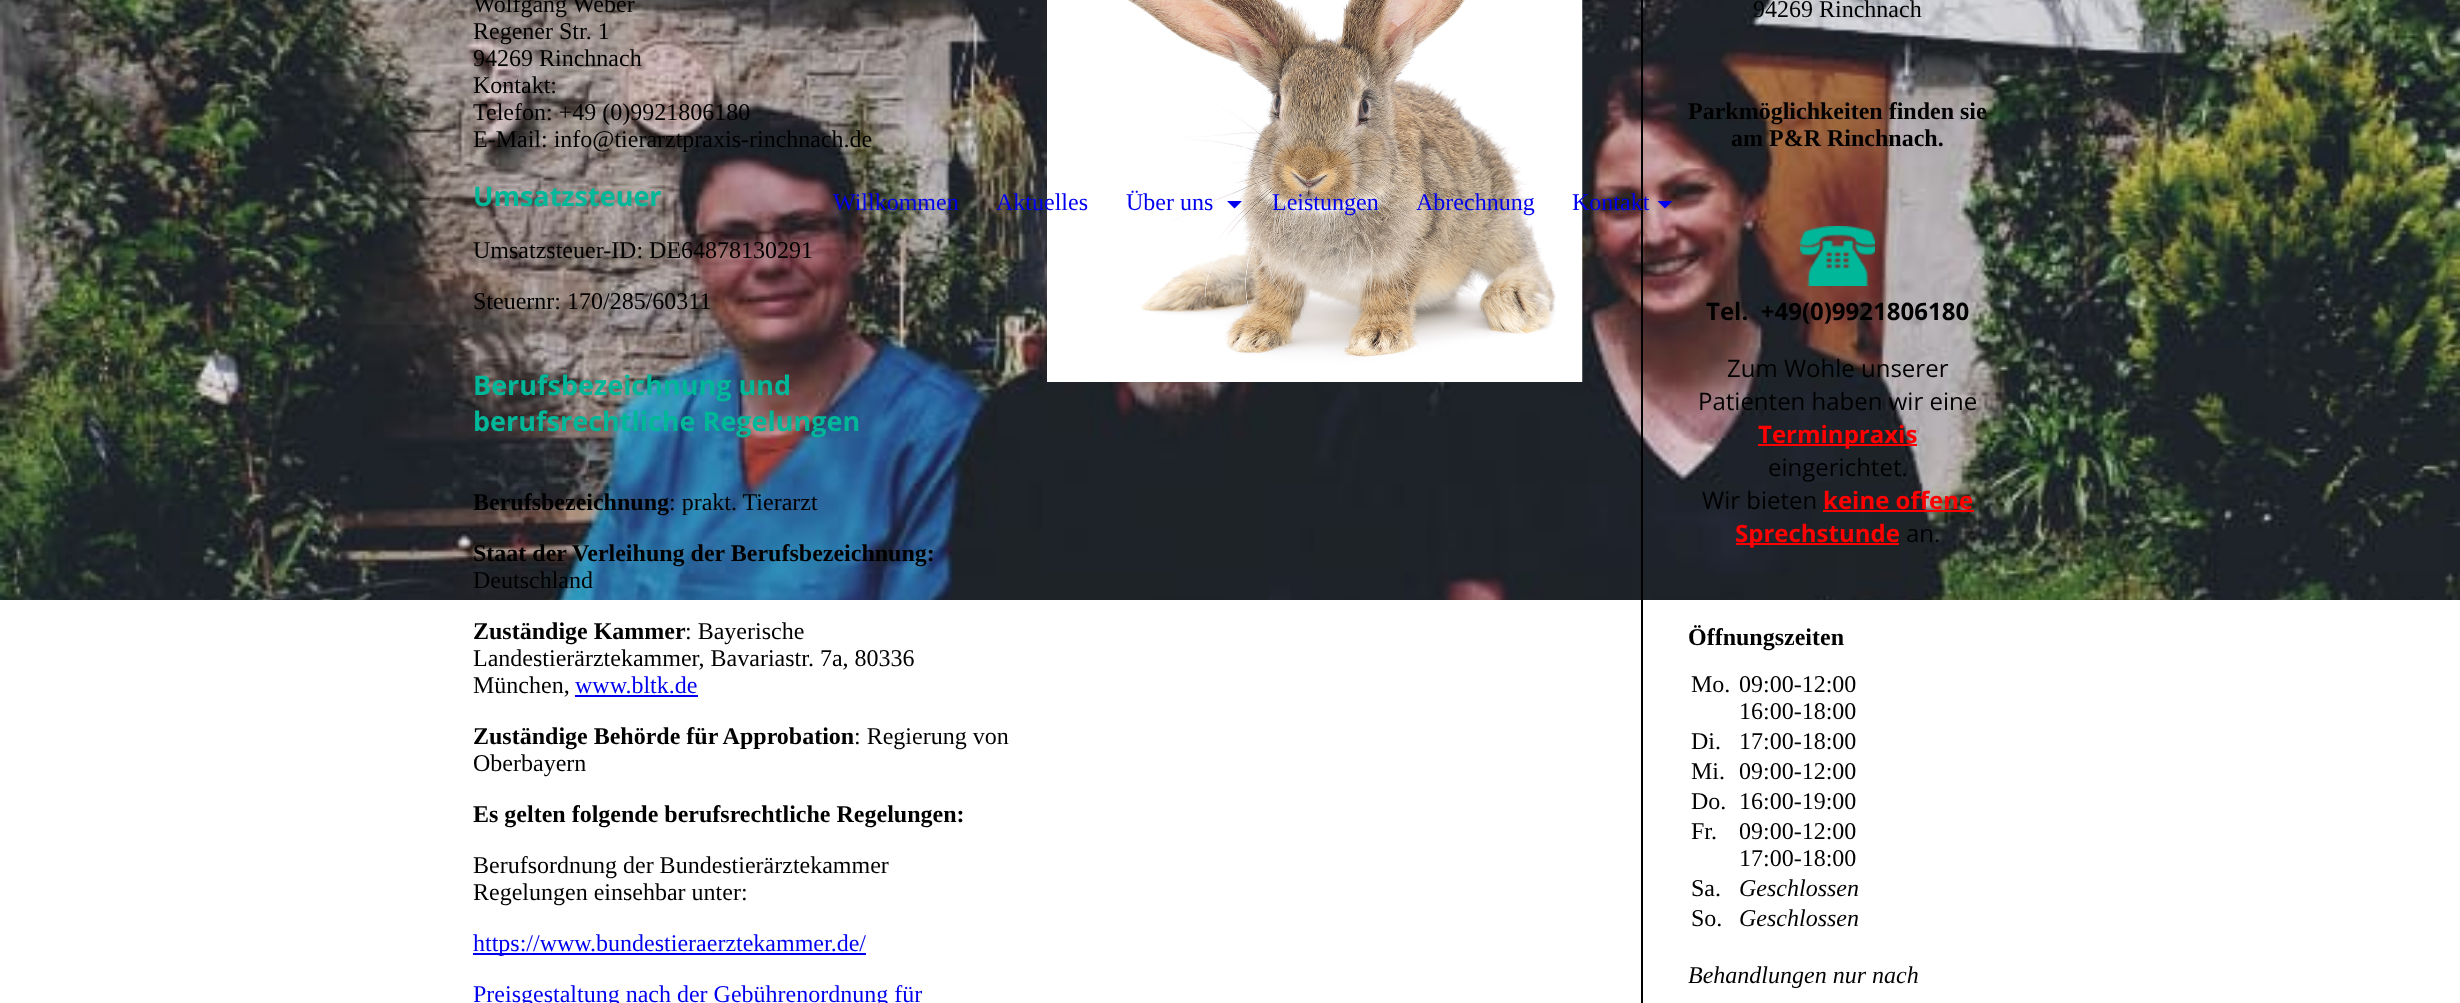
<svg xmlns="http://www.w3.org/2000/svg" width="2460" height="1003" viewBox="0 0 2460 1003">
  <style>
    .t1 { font: 24px Liberation Serif; fill: #000; }
    .t2 { font: bold 27px Open Sans; fill: #00b799; }
    .t3 { font: bold 24px Liberation Serif; fill: #000; }
    .t4 { font: 24px Liberation Serif; fill: #00e; }
    .t5 { font: bold 24px Open Sans; fill: #000; }
    .t6 { font: 24px Open Sans; fill: #000; }
    .t7 { font: bold 24px Open Sans; fill: #f00; }
    .t8 { font: italic 24px Liberation Serif; fill: #000; }
  </style>
  <rect width="100%" height="100%" fill="#fff"/>
  <image x="0" y="0" width="2460" height="600" href="images/1.png"/>
  <text x="473" y="12" class="t1">Wolfgang Weber</text>
  <text x="473" y="39" class="t1">Regener Str. 1</text>
  <text x="473" y="66" class="t1">94269 Rinchnach</text>
  <text x="473" y="93" class="t1">Kontakt:</text>
  <text x="473" y="120" class="t1">Telefon: +49 (0)9921806180</text>
  <text x="473" y="147" class="t1">E-Mail: info@tierarztpraxis-rinchnach.de</text>
  <text x="473" y="206" class="t2">Umsatzsteuer</text>
  <text x="473" y="258" class="t1">Umsatzsteuer-ID: DE64878130291</text>
  <text x="473" y="309" class="t1">Steuernr: 170/285/60311</text>
  <text x="473" y="395" class="t2">Berufsbezeichnung und</text>
  <text x="473" y="431" class="t2">berufsrechtliche Regelungen</text>
  <text x="473" y="510" class="t3">Berufsbezeichnung</text>
  <text x="669" y="510" class="t1">: prakt. Tierarzt</text>
  <text x="473" y="561" class="t3">Staat der Verleihung der Berufsbezeichnung:</text>
  <text x="473" y="588" class="t1">Deutschland</text>
  <text x="473" y="639" class="t3">Zuständige Kammer</text>
  <text x="685" y="639" class="t1">: Bayerische</text>
  <text x="473" y="666" class="t1">Landestierärztekammer, Bavariastr. 7a, 80336</text>
  <text x="473" y="693" class="t1">München,</text>
  <text x="575" y="693" class="t4">www.bltk.de</text>
  <rect x="575" y="695" width="123" height="2" fill="#00e"/>
  <text x="473" y="744" class="t3">Zuständige Behörde für Approbation</text>
  <text x="854" y="744" class="t1">: Regierung von</text>
  <text x="473" y="771" class="t1">Oberbayern</text>
  <text x="473" y="822" class="t3">Es gelten folgende berufsrechtliche Regelungen:</text>
  <text x="473" y="873" class="t1">Berufsordnung der Bundestierärztekammer</text>
  <text x="473" y="900" class="t1">Regelungen einsehbar unter:</text>
  <rect x="473" y="953" width="393" height="2" fill="#00e"/>
  <text x="473" y="951" class="t4">https://www.bundestieraerztekammer.de/</text>
  <text x="473" y="1002" class="t4">Preisgestaltung nach der Gebührenordnung für</text>
  <image x="1047" y="0" width="536" height="382" href="images/2.png"/>
  <rect x="1641" y="0" width="2" height="1003" fill="#000"/>
  <text x="1753" y="17" class="t1">94269 Rinchnach</text>
  <text x="1688" y="119" class="t3">Parkmöglichkeiten finden sie</text>
  <text x="1731" y="146" class="t3">am P&amp;R Rinchnach.</text>
  <image x="1800" y="226" width="75" height="60" href="images/3.png"/>
  <text x="1706" y="320" class="t5" xml:space="preserve">Tel.  +49(0)9921806180</text>
  <text x="1727" y="377" class="t6">Zum Wohle unserer</text>
  <text x="1698" y="410" class="t6">Patienten haben wir eine</text>
  <rect x="1758" y="444" width="159" height="2" fill="#f00"/>
  <text x="1758" y="443" class="t7">Terminpraxis</text>
  <text x="1768" y="476" class="t6">eingerichtet.</text>
  <text x="1702" y="509" class="t6">Wir bieten</text>
  <text x="1823" y="509" class="t7">keine offene</text>
  <rect x="1823" y="510" width="151" height="2" fill="#f00"/>
  <rect x="1736" y="543" width="163" height="2" fill="#f00"/>
  <text x="1735" y="542" class="t7">Sprechstunde</text>
  <text x="1906" y="542" class="t6">an.</text>
  <text x="1688" y="645" class="t3">Öffnungszeiten</text>
  <text x="1691" y="692" class="t1">Mo.</text>
  <text x="1739" y="692" class="t1">09:00-12:00</text>
  <text x="1739" y="719" class="t1">16:00-18:00</text>
  <text x="1691" y="749" class="t1">Di.</text>
  <text x="1739" y="749" class="t1">17:00-18:00</text>
  <text x="1691" y="779" class="t1">Mi.</text>
  <text x="1739" y="779" class="t1">09:00-12:00</text>
  <text x="1691" y="809" class="t1">Do.</text>
  <text x="1739" y="809" class="t1">16:00-19:00</text>
  <text x="1691" y="839" class="t1">Fr.</text>
  <text x="1739" y="839" class="t1">09:00-12:00</text>
  <text x="1739" y="866" class="t1">17:00-18:00</text>
  <text x="1691" y="896" class="t1">Sa.</text>
  <text x="1739" y="896" class="t8">Geschlossen</text>
  <text x="1691" y="926" class="t1">So.</text>
  <text x="1739" y="926" class="t8">Geschlossen</text>
  <text x="1688" y="983" class="t8">Behandlungen nur nach</text>
  <text x="833" y="210" class="t4">Willkommen</text>
  <text x="996" y="210" class="t4">Aktuelles</text>
  <text x="1126" y="210" class="t4">Über uns</text>
  <path d="M1227 201H1242L1234.5 208.5Z" fill="#00e"/>
  <text x="1272" y="210" class="t4">Leistungen</text>
  <text x="1416" y="210" class="t4">Abrechnung</text>
  <text x="1572" y="210" class="t4">Kontakt</text>
  <path d="M1657.5 201H1672.5L1665 208.5Z" fill="#00e"/>
</svg>
